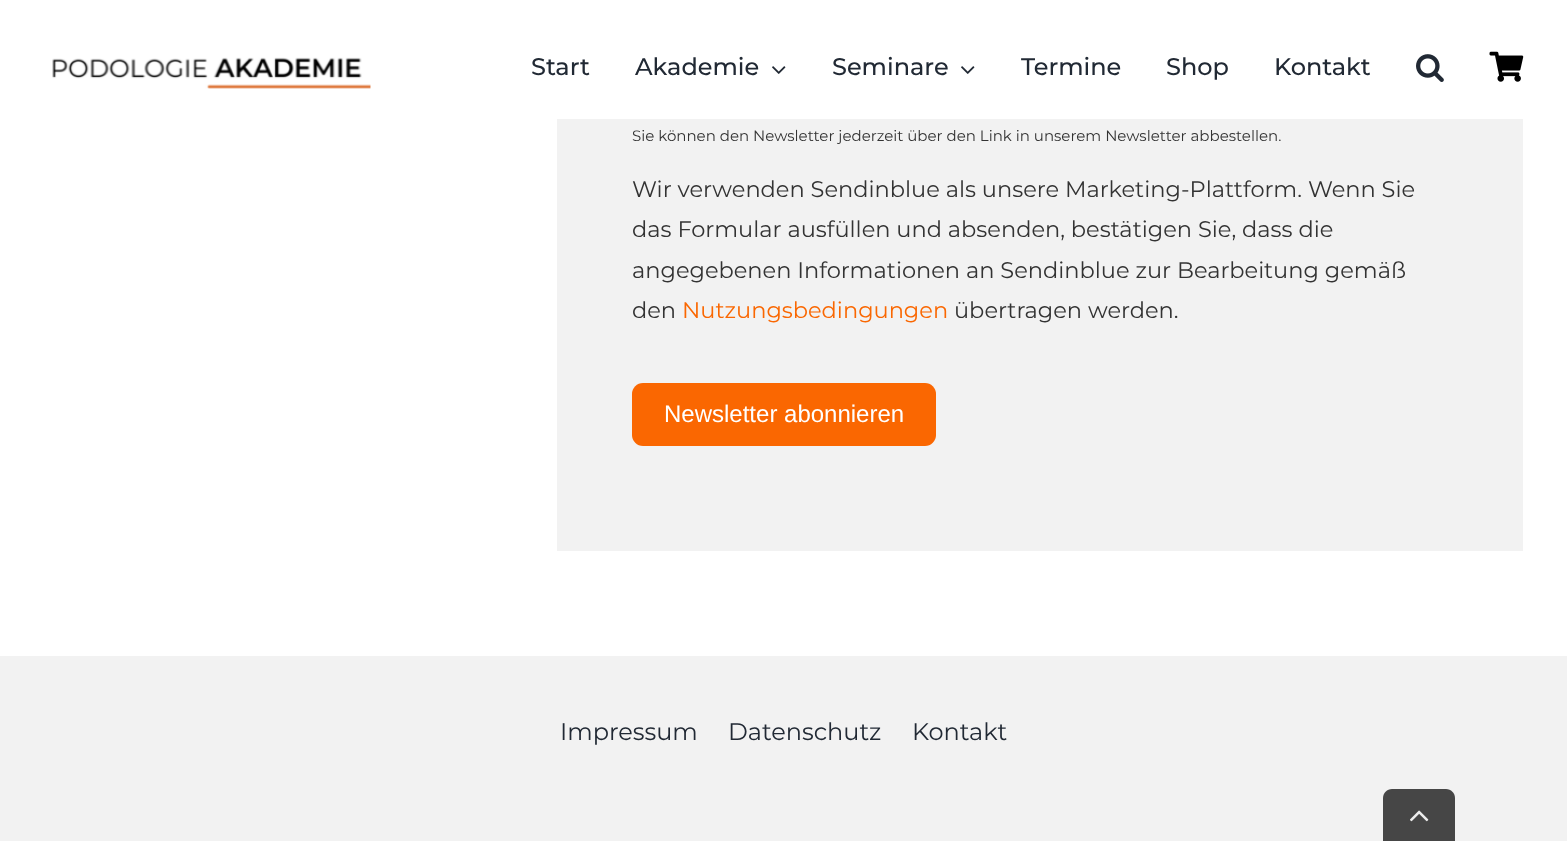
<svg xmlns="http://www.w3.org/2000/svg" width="1567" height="841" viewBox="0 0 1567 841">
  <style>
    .t1 { font: 500 24px Montserrat; fill: #212934; }
    .t2 { font: 15px Montserrat; fill: #333; }
    .t3 { font: 22.5px Montserrat; fill: #333; }
    .t4 { font: 22.5px Montserrat; fill: #fa6701; }
    .t5 { font: 24px Liberation Sans; fill: #fff; }
    .t6 { font: 24px Montserrat; fill: #212934; }
  </style>
  <rect width="100%" height="100%" fill="#fff"/>
  <image x="52" y="57" width="319" height="32" href="images/1.png"/>
  <text x="531" y="75" class="t1">Start</text>
  <text x="635" y="75" class="t1">Akademie</text>
  <image x="772" y="66" width="14" height="8" href="images/2.png"/>
  <text x="832" y="75" class="t1">Seminare</text>
  <image x="961" y="66" width="14" height="8" href="images/2.png"/>
  <text x="1021" y="75" class="t1">Termine</text>
  <text x="1166" y="75" class="t1">Shop</text>
  <text x="1274" y="75" class="t1">Kontakt</text>
  <image x="1416" y="54" width="28" height="28" href="images/3.png"/>
  <image x="1489" y="51" width="35" height="31" href="images/4.png"/>
  <rect x="557" y="119" width="966" height="432" fill="#f2f2f2"/>
  <text x="632" y="141" class="t2">Sie können den Newsletter jederzeit über den Link in unserem Newsletter abbestellen.</text>
  <text x="632" y="197" class="t3">Wir verwenden Sendinblue als unsere Marketing-Plattform. Wenn Sie</text>
  <text x="632" y="237" class="t3">das Formular ausfüllen und absenden, bestätigen Sie, dass die</text>
  <text x="632" y="278" class="t3">angegebenen Informationen an Sendinblue zur Bearbeitung gemäß</text>
  <text x="632" y="318" class="t3">den</text>
  <text x="682" y="318" class="t4">Nutzungsbedingungen</text>
  <text x="954" y="318" class="t3">übertragen werden.</text>
  <rect x="632" y="383" width="304" height="63" rx="11" fill="#fa6701"/>
  <text x="664" y="422" class="t5">Newsletter abonnieren</text>
  <rect x="0" y="656" width="1567" height="185" fill="#f2f2f2"/>
  <text x="560" y="740" class="t6">Impressum</text>
  <text x="728" y="740" class="t6">Datenschutz</text>
  <text x="912" y="740" class="t6">Kontakt</text>
  <path d="M1392 789H1446C1451 789 1455 793 1455 798V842H1383V798C1383 793 1387 789 1392 789Z" fill="#464646"/>
  <image x="1410" y="810" width="19" height="12" href="images/5.png"/>
</svg>
